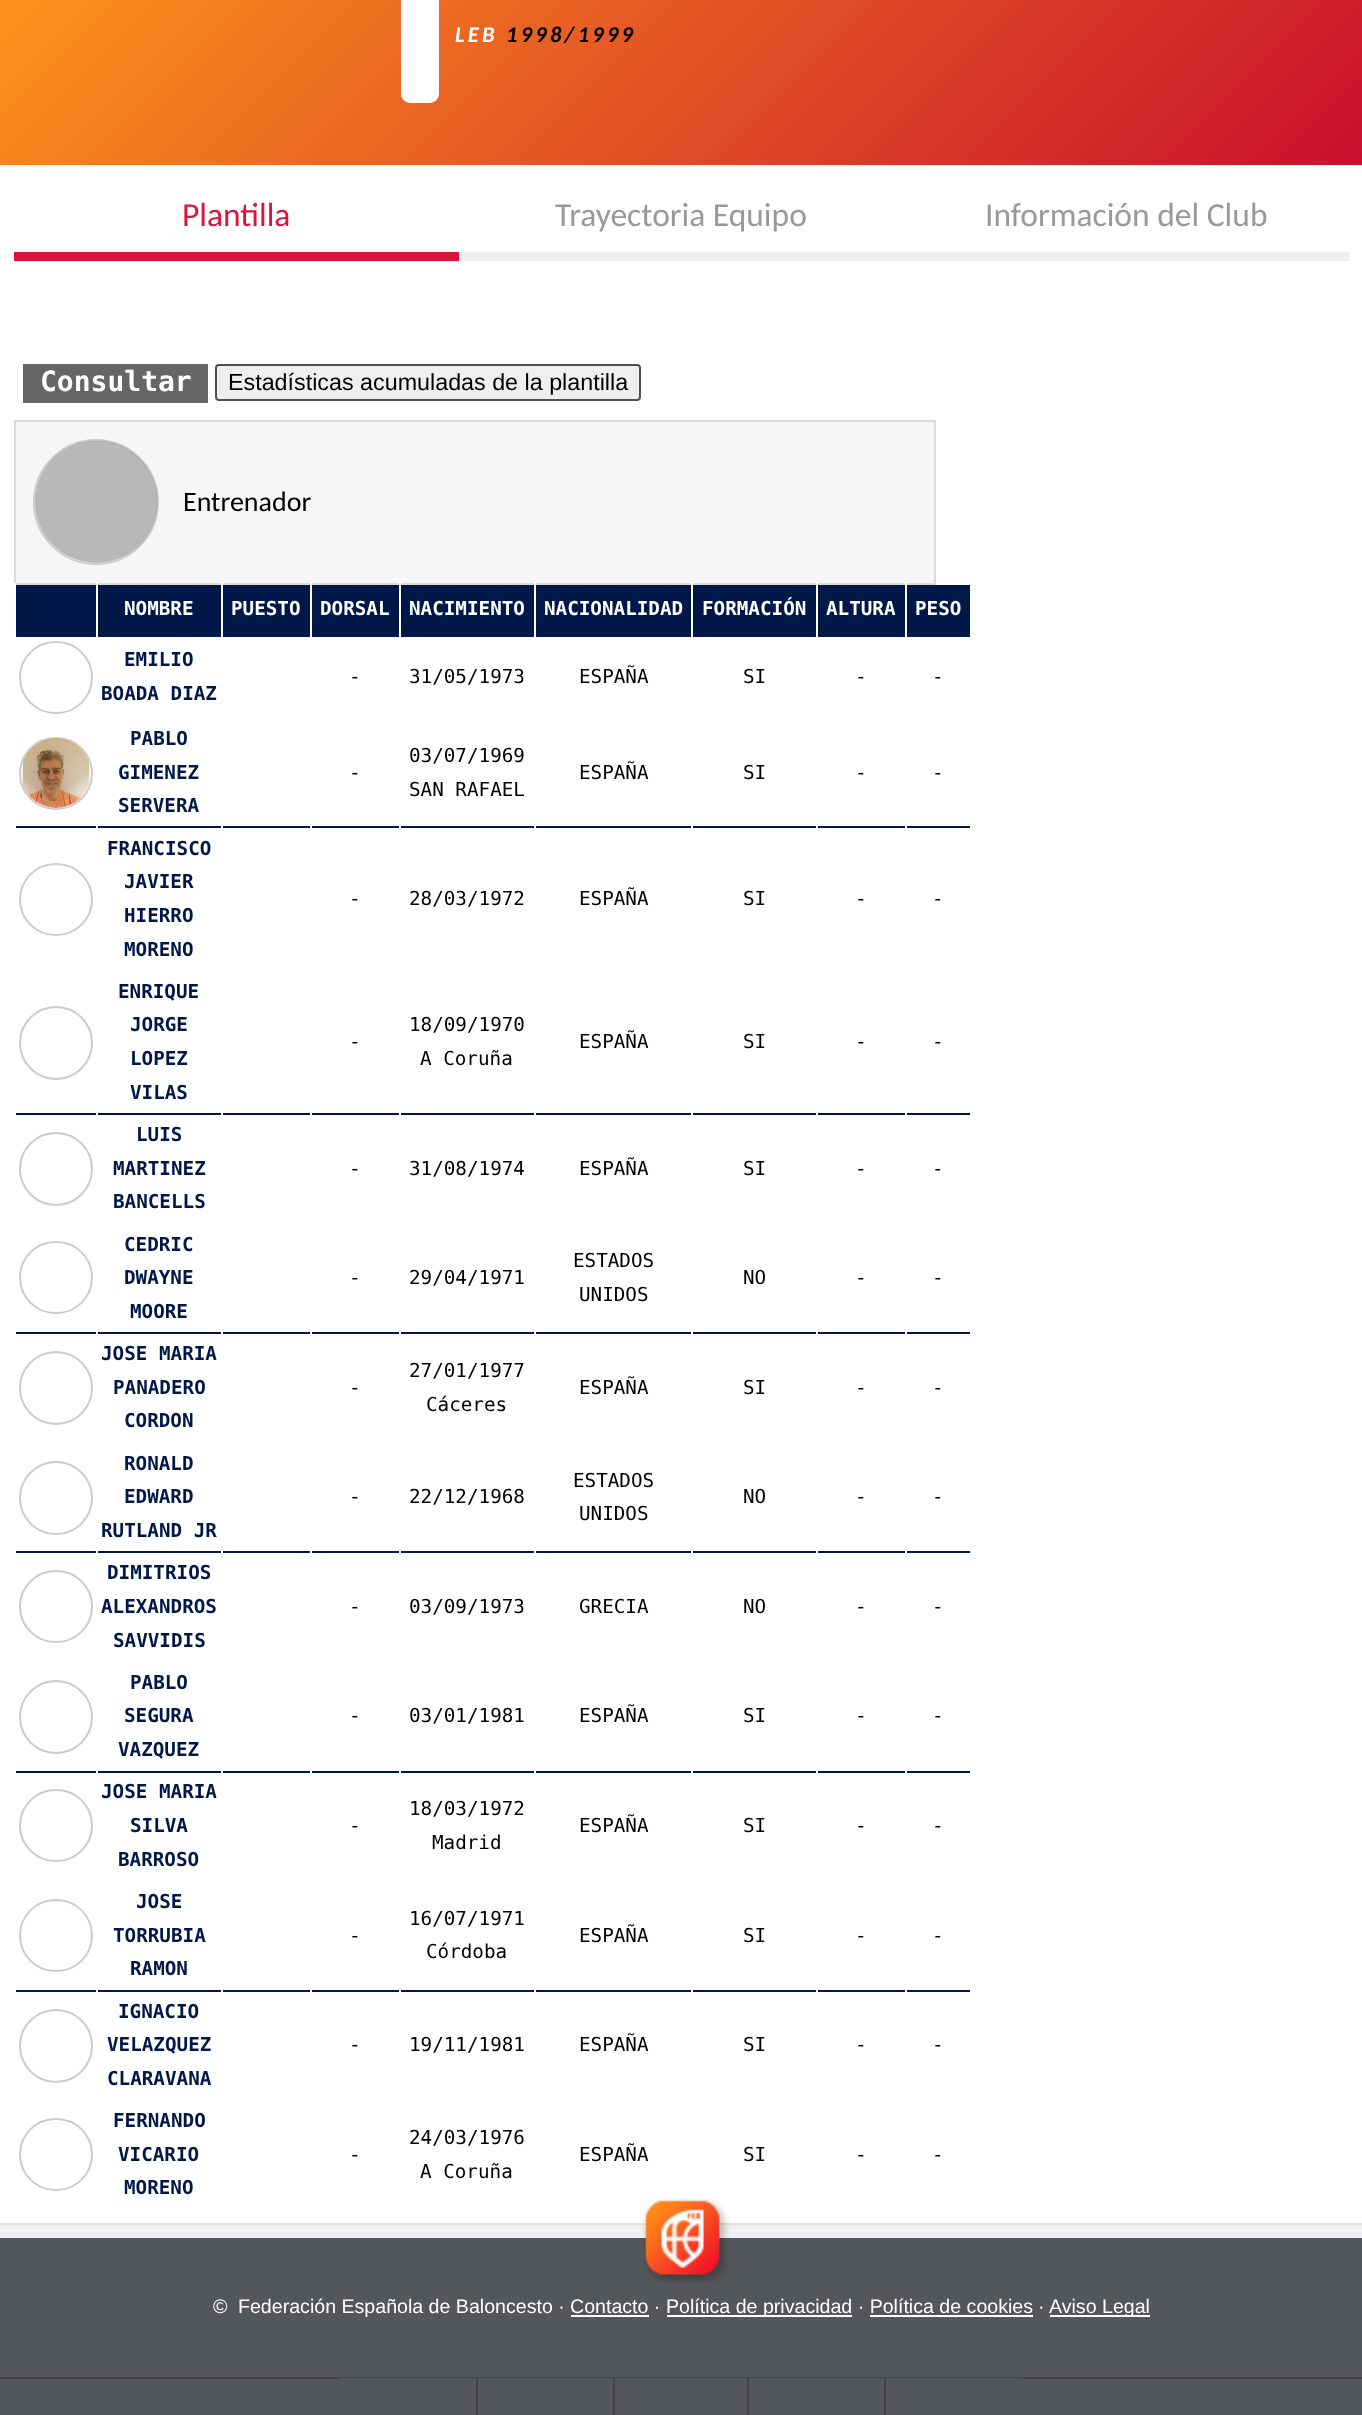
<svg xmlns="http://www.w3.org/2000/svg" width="1362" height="2415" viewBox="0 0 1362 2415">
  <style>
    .t1 { font: italic bold 22.5px Carlito; letter-spacing: 3.25px; fill: #fff; }
    .t2 { font: italic bold 22.5px Carlito; letter-spacing: 3.25px; fill: #000; }
    .t3 { font: 33.5px Carlito; fill: #dc143c; }
    .t4 { font: 33.5px Carlito; fill: #999; }
    .t5 { font: bold 28px DejaVu Sans Mono; fill: #fff; }
    .t6 { font: 23.3px Liberation Sans; fill: #000; }
    .t7 { font: 28px Carlito; fill: #000; }
    .t8 { font: bold 19.25px DejaVu Sans Mono; fill: #fff; }
    .t9 { font: bold 19.25px DejaVu Sans Mono; fill: #001848; }
    .t10 { font: 19.25px DejaVu Sans Mono; fill: #000; }
    .t11 { font: 19.6px Liberation Sans; fill: #fff; }
  </style>
  <defs>
    <linearGradient id="g1" gradientUnits="userSpaceOnUse" x1="273" y1="-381" x2="1091" y2="437"><stop offset="0" stop-color="#ff9c1b"/><stop offset="1" stop-color="#c8102e"/></linearGradient>
  </defs>
  <rect width="100%" height="100%" fill="#53565a"/>
  <rect x="0" y="165" width="1362" height="2058" fill="#fff"/>
  <rect x="0" y="0" width="1362" height="165" fill="url(#g1)"/>
  <rect x="401" y="-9" width="38" height="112" rx="9" fill="#fff"/>
  <text x="455" y="42" class="t1">LEB</text>
  <text x="506" y="42" class="t2">1998/1999</text>
  <rect x="14" y="252" width="445" height="9" fill="#dc143c"/>
  <text x="182" y="226" class="t3">Plantilla</text>
  <rect x="459" y="252" width="890" height="9" fill="#f0f0f0"/>
  <text x="555" y="226" class="t4">Trayectoria Equipo</text>
  <text x="985" y="226" class="t4">Información del Club</text>
  <rect x="23" y="364" width="185" height="39" fill="#666"/>
  <text x="40" y="391" class="t5">Consultar</text>
  <rect x="216" y="365" width="424" height="35" rx="3" fill="#efefef" stroke="#4f4f4f" stroke-width="2"/>
  <text x="228" y="390" class="t6">Estadísticas acumuladas de la plantilla</text>
  <rect x="15" y="421" width="920" height="163" fill="#f6f6f6" stroke="#dbdbdb" stroke-width="2"/>
  <circle cx="96" cy="502" r="62" fill="none" stroke="#ccc" stroke-width="2"/>
  <image x="35" y="440" width="123" height="123" href="images/1.png"/>
  <text x="183" y="511" class="t7">Entrenador</text>
  <rect x="16" y="585" width="80" height="50" fill="#001848"/>
  <rect x="14" y="583" width="2" height="2" fill="#fff"/>
  <rect x="98" y="585" width="123" height="50" fill="#001848"/>
  <rect x="96" y="583" width="2" height="2" fill="#fff"/>
  <text x="124" y="615" class="t8">NOMBRE</text>
  <rect x="223" y="585" width="87" height="50" fill="#001848"/>
  <rect x="221" y="583" width="2" height="2" fill="#fff"/>
  <text x="231" y="615" class="t8">PUESTO</text>
  <rect x="312" y="585" width="87" height="50" fill="#001848"/>
  <rect x="310" y="583" width="2" height="2" fill="#fff"/>
  <text x="320" y="615" class="t8">DORSAL</text>
  <rect x="401" y="585" width="133" height="50" fill="#001848"/>
  <rect x="399" y="583" width="2" height="2" fill="#fff"/>
  <text x="409" y="615" class="t8">NACIMIENTO</text>
  <rect x="536" y="585" width="155" height="50" fill="#001848"/>
  <rect x="534" y="583" width="2" height="2" fill="#fff"/>
  <text x="544" y="615" class="t8">NACIONALIDAD</text>
  <rect x="693" y="585" width="123" height="50" fill="#001848"/>
  <rect x="691" y="583" width="2" height="2" fill="#fff"/>
  <text x="702" y="615" class="t8">FORMACIÓN</text>
  <rect x="818" y="585" width="87" height="50" fill="#001848"/>
  <rect x="816" y="583" width="2" height="2" fill="#fff"/>
  <text x="826" y="615" class="t8">ALTURA</text>
  <rect x="907" y="585" width="63" height="50" fill="#001848"/>
  <rect x="905" y="583" width="2" height="2" fill="#fff"/>
  <text x="915" y="615" class="t8">PESO</text>
  <rect x="14" y="635" width="957" height="2" fill="#001848"/>
  <rect x="96" y="635" width="2" height="2" fill="#fff"/>
  <rect x="14" y="635" width="2" height="2" fill="#fff"/>
  <rect x="20" y="642" width="72" height="71" rx="35.5" fill="none" stroke="#ccc" stroke-width="2"/>
  <rect x="310" y="635" width="2" height="2" fill="#fff"/>
  <rect x="221" y="635" width="2" height="2" fill="#fff"/>
  <text x="124" y="666" class="t9">EMILIO</text>
  <text x="101" y="700" class="t9">BOADA DIAZ</text>
  <rect x="399" y="635" width="2" height="2" fill="#fff"/>
  <text x="349" y="683" class="t10">-</text>
  <rect x="534" y="635" width="2" height="2" fill="#fff"/>
  <text x="409" y="683" class="t10">31/05/1973</text>
  <rect x="691" y="635" width="2" height="2" fill="#fff"/>
  <text x="579" y="683" class="t10">ESPAÑA</text>
  <rect x="816" y="635" width="2" height="2" fill="#fff"/>
  <text x="743" y="683" class="t10">SI</text>
  <rect x="905" y="635" width="2" height="2" fill="#fff"/>
  <text x="855" y="683" class="t10">-</text>
  <rect x="970" y="635" width="1" height="2" fill="#fff"/>
  <text x="932" y="683" class="t10">-</text>
  <rect x="20" y="738" width="72" height="71" rx="35.5" fill="none" stroke="#ccc" stroke-width="2"/>
  <image x="22" y="738" width="68" height="70" href="images/2.png"/>
  <text x="130" y="745" class="t9">PABLO</text>
  <text x="118" y="779" class="t9">GIMENEZ</text>
  <text x="118" y="812" class="t9">SERVERA</text>
  <text x="349" y="779" class="t10">-</text>
  <text x="409" y="762" class="t10">03/07/1969</text>
  <text x="409" y="796" class="t10">SAN RAFAEL</text>
  <text x="579" y="779" class="t10">ESPAÑA</text>
  <text x="743" y="779" class="t10">SI</text>
  <text x="855" y="779" class="t10">-</text>
  <text x="932" y="779" class="t10">-</text>
  <rect x="14" y="826" width="957" height="2" fill="#001848"/>
  <rect x="96" y="826" width="2" height="2" fill="#fff"/>
  <rect x="14" y="826" width="2" height="2" fill="#fff"/>
  <rect x="20" y="864" width="72" height="71" rx="35.5" fill="none" stroke="#ccc" stroke-width="2"/>
  <rect x="310" y="826" width="2" height="2" fill="#fff"/>
  <rect x="221" y="826" width="2" height="2" fill="#fff"/>
  <text x="107" y="855" class="t9">FRANCISCO</text>
  <text x="124" y="888" class="t9">JAVIER</text>
  <text x="124" y="922" class="t9">HIERRO</text>
  <text x="124" y="956" class="t9">MORENO</text>
  <rect x="399" y="826" width="2" height="2" fill="#fff"/>
  <text x="349" y="905" class="t10">-</text>
  <rect x="534" y="826" width="2" height="2" fill="#fff"/>
  <text x="409" y="905" class="t10">28/03/1972</text>
  <rect x="691" y="826" width="2" height="2" fill="#fff"/>
  <text x="579" y="905" class="t10">ESPAÑA</text>
  <rect x="816" y="826" width="2" height="2" fill="#fff"/>
  <text x="743" y="905" class="t10">SI</text>
  <rect x="905" y="826" width="2" height="2" fill="#fff"/>
  <text x="855" y="905" class="t10">-</text>
  <rect x="970" y="826" width="1" height="2" fill="#fff"/>
  <text x="932" y="905" class="t10">-</text>
  <circle cx="56" cy="1043" r="36" fill="none" stroke="#ccc" stroke-width="2"/>
  <text x="118" y="998" class="t9">ENRIQUE</text>
  <text x="130" y="1031" class="t9">JORGE</text>
  <text x="130" y="1065" class="t9">LOPEZ</text>
  <text x="130" y="1099" class="t9">VILAS</text>
  <text x="349" y="1048" class="t10">-</text>
  <text x="409" y="1031" class="t10">18/09/1970</text>
  <text x="420" y="1065" class="t10">A Coruña</text>
  <text x="579" y="1048" class="t10">ESPAÑA</text>
  <text x="743" y="1048" class="t10">SI</text>
  <text x="855" y="1048" class="t10">-</text>
  <text x="932" y="1048" class="t10">-</text>
  <rect x="14" y="1113" width="957" height="2" fill="#001848"/>
  <rect x="96" y="1113" width="2" height="2" fill="#fff"/>
  <rect x="14" y="1113" width="2" height="2" fill="#fff"/>
  <circle cx="56" cy="1169" r="36" fill="none" stroke="#ccc" stroke-width="2"/>
  <rect x="310" y="1113" width="2" height="2" fill="#fff"/>
  <rect x="221" y="1113" width="2" height="2" fill="#fff"/>
  <text x="136" y="1141" class="t9">LUIS</text>
  <text x="113" y="1175" class="t9">MARTINEZ</text>
  <text x="113" y="1208" class="t9">BANCELLS</text>
  <rect x="399" y="1113" width="2" height="2" fill="#fff"/>
  <text x="349" y="1175" class="t10">-</text>
  <rect x="534" y="1113" width="2" height="2" fill="#fff"/>
  <text x="409" y="1175" class="t10">31/08/1974</text>
  <rect x="691" y="1113" width="2" height="2" fill="#fff"/>
  <text x="579" y="1175" class="t10">ESPAÑA</text>
  <rect x="816" y="1113" width="2" height="2" fill="#fff"/>
  <text x="743" y="1175" class="t10">SI</text>
  <rect x="905" y="1113" width="2" height="2" fill="#fff"/>
  <text x="855" y="1175" class="t10">-</text>
  <rect x="970" y="1113" width="1" height="2" fill="#fff"/>
  <text x="932" y="1175" class="t10">-</text>
  <rect x="20" y="1242" width="72" height="71" rx="35.5" fill="none" stroke="#ccc" stroke-width="2"/>
  <text x="124" y="1251" class="t9">CEDRIC</text>
  <text x="124" y="1284" class="t9">DWAYNE</text>
  <text x="130" y="1318" class="t9">MOORE</text>
  <text x="349" y="1284" class="t10">-</text>
  <text x="409" y="1284" class="t10">29/04/1971</text>
  <text x="573" y="1267" class="t10">ESTADOS</text>
  <text x="579" y="1301" class="t10">UNIDOS</text>
  <text x="743" y="1284" class="t10">NO</text>
  <text x="855" y="1284" class="t10">-</text>
  <text x="932" y="1284" class="t10">-</text>
  <rect x="14" y="1332" width="957" height="2" fill="#001848"/>
  <rect x="96" y="1332" width="2" height="2" fill="#fff"/>
  <rect x="14" y="1332" width="2" height="2" fill="#fff"/>
  <circle cx="56" cy="1388" r="36" fill="none" stroke="#ccc" stroke-width="2"/>
  <rect x="310" y="1332" width="2" height="2" fill="#fff"/>
  <rect x="221" y="1332" width="2" height="2" fill="#fff"/>
  <text x="101" y="1360" class="t9">JOSE MARIA</text>
  <text x="113" y="1394" class="t9">PANADERO</text>
  <text x="124" y="1427" class="t9">CORDON</text>
  <rect x="399" y="1332" width="2" height="2" fill="#fff"/>
  <text x="349" y="1394" class="t10">-</text>
  <rect x="534" y="1332" width="2" height="2" fill="#fff"/>
  <text x="409" y="1377" class="t10">27/01/1977</text>
  <text x="426" y="1411" class="t10">Cáceres</text>
  <rect x="691" y="1332" width="2" height="2" fill="#fff"/>
  <text x="579" y="1394" class="t10">ESPAÑA</text>
  <rect x="816" y="1332" width="2" height="2" fill="#fff"/>
  <text x="743" y="1394" class="t10">SI</text>
  <rect x="905" y="1332" width="2" height="2" fill="#fff"/>
  <text x="855" y="1394" class="t10">-</text>
  <rect x="970" y="1332" width="1" height="2" fill="#fff"/>
  <text x="932" y="1394" class="t10">-</text>
  <circle cx="56" cy="1498" r="36" fill="none" stroke="#ccc" stroke-width="2"/>
  <text x="124" y="1470" class="t9">RONALD</text>
  <text x="124" y="1503" class="t9">EDWARD</text>
  <text x="101" y="1537" class="t9">RUTLAND JR</text>
  <text x="349" y="1503" class="t10">-</text>
  <text x="409" y="1503" class="t10">22/12/1968</text>
  <text x="573" y="1487" class="t10">ESTADOS</text>
  <text x="579" y="1520" class="t10">UNIDOS</text>
  <text x="743" y="1503" class="t10">NO</text>
  <text x="855" y="1503" class="t10">-</text>
  <text x="932" y="1503" class="t10">-</text>
  <rect x="14" y="1551" width="957" height="2" fill="#001848"/>
  <rect x="96" y="1551" width="2" height="2" fill="#fff"/>
  <rect x="14" y="1551" width="2" height="2" fill="#fff"/>
  <rect x="20" y="1571" width="72" height="71" rx="35.5" fill="none" stroke="#ccc" stroke-width="2"/>
  <rect x="310" y="1551" width="2" height="2" fill="#fff"/>
  <rect x="221" y="1551" width="2" height="2" fill="#fff"/>
  <text x="107" y="1579" class="t9">DIMITRIOS</text>
  <text x="101" y="1613" class="t9">ALEXANDROS</text>
  <text x="113" y="1647" class="t9">SAVVIDIS</text>
  <rect x="399" y="1551" width="2" height="2" fill="#fff"/>
  <text x="349" y="1613" class="t10">-</text>
  <rect x="534" y="1551" width="2" height="2" fill="#fff"/>
  <text x="409" y="1613" class="t10">03/09/1973</text>
  <rect x="691" y="1551" width="2" height="2" fill="#fff"/>
  <text x="579" y="1613" class="t10">GRECIA</text>
  <rect x="816" y="1551" width="2" height="2" fill="#fff"/>
  <text x="743" y="1613" class="t10">NO</text>
  <rect x="905" y="1551" width="2" height="2" fill="#fff"/>
  <text x="855" y="1613" class="t10">-</text>
  <rect x="970" y="1551" width="1" height="2" fill="#fff"/>
  <text x="932" y="1613" class="t10">-</text>
  <circle cx="56" cy="1717" r="36" fill="none" stroke="#ccc" stroke-width="2"/>
  <text x="130" y="1689" class="t9">PABLO</text>
  <text x="124" y="1722" class="t9">SEGURA</text>
  <text x="118" y="1756" class="t9">VAZQUEZ</text>
  <text x="349" y="1722" class="t10">-</text>
  <text x="409" y="1722" class="t10">03/01/1981</text>
  <text x="579" y="1722" class="t10">ESPAÑA</text>
  <text x="743" y="1722" class="t10">SI</text>
  <text x="855" y="1722" class="t10">-</text>
  <text x="932" y="1722" class="t10">-</text>
  <rect x="14" y="1771" width="957" height="2" fill="#001848"/>
  <rect x="96" y="1771" width="2" height="2" fill="#fff"/>
  <rect x="14" y="1771" width="2" height="2" fill="#fff"/>
  <rect x="20" y="1790" width="72" height="71" rx="35.5" fill="none" stroke="#ccc" stroke-width="2"/>
  <rect x="310" y="1771" width="2" height="2" fill="#fff"/>
  <rect x="221" y="1771" width="2" height="2" fill="#fff"/>
  <text x="101" y="1798" class="t9">JOSE MARIA</text>
  <text x="130" y="1832" class="t9">SILVA</text>
  <text x="118" y="1866" class="t9">BARROSO</text>
  <rect x="399" y="1771" width="2" height="2" fill="#fff"/>
  <text x="349" y="1832" class="t10">-</text>
  <rect x="534" y="1771" width="2" height="2" fill="#fff"/>
  <text x="409" y="1815" class="t10">18/03/1972</text>
  <text x="432" y="1849" class="t10">Madrid</text>
  <rect x="691" y="1771" width="2" height="2" fill="#fff"/>
  <text x="579" y="1832" class="t10">ESPAÑA</text>
  <rect x="816" y="1771" width="2" height="2" fill="#fff"/>
  <text x="743" y="1832" class="t10">SI</text>
  <rect x="905" y="1771" width="2" height="2" fill="#fff"/>
  <text x="855" y="1832" class="t10">-</text>
  <rect x="970" y="1771" width="1" height="2" fill="#fff"/>
  <text x="932" y="1832" class="t10">-</text>
  <rect x="20" y="1900" width="72" height="71" rx="35.5" fill="none" stroke="#ccc" stroke-width="2"/>
  <text x="136" y="1908" class="t9">JOSE</text>
  <text x="113" y="1942" class="t9">TORRUBIA</text>
  <text x="130" y="1975" class="t9">RAMON</text>
  <text x="349" y="1942" class="t10">-</text>
  <text x="409" y="1925" class="t10">16/07/1971</text>
  <text x="426" y="1958" class="t10">Córdoba</text>
  <text x="579" y="1942" class="t10">ESPAÑA</text>
  <text x="743" y="1942" class="t10">SI</text>
  <text x="855" y="1942" class="t10">-</text>
  <text x="932" y="1942" class="t10">-</text>
  <rect x="14" y="1990" width="957" height="2" fill="#001848"/>
  <rect x="96" y="1990" width="2" height="2" fill="#fff"/>
  <rect x="14" y="1990" width="2" height="2" fill="#fff"/>
  <circle cx="56" cy="2046" r="36" fill="none" stroke="#ccc" stroke-width="2"/>
  <rect x="310" y="1990" width="2" height="2" fill="#fff"/>
  <rect x="221" y="1990" width="2" height="2" fill="#fff"/>
  <text x="118" y="2018" class="t9">IGNACIO</text>
  <text x="107" y="2051" class="t9">VELAZQUEZ</text>
  <text x="107" y="2085" class="t9">CLARAVANA</text>
  <rect x="399" y="1990" width="2" height="2" fill="#fff"/>
  <text x="349" y="2051" class="t10">-</text>
  <rect x="534" y="1990" width="2" height="2" fill="#fff"/>
  <text x="409" y="2051" class="t10">19/11/1981</text>
  <rect x="691" y="1990" width="2" height="2" fill="#fff"/>
  <text x="579" y="2051" class="t10">ESPAÑA</text>
  <rect x="816" y="1990" width="2" height="2" fill="#fff"/>
  <text x="743" y="2051" class="t10">SI</text>
  <rect x="905" y="1990" width="2" height="2" fill="#fff"/>
  <text x="855" y="2051" class="t10">-</text>
  <rect x="970" y="1990" width="1" height="2" fill="#fff"/>
  <text x="932" y="2051" class="t10">-</text>
  <rect x="20" y="2119" width="72" height="71" rx="35.5" fill="none" stroke="#ccc" stroke-width="2"/>
  <text x="113" y="2127" class="t9">FERNANDO</text>
  <text x="118" y="2161" class="t9">VICARIO</text>
  <text x="124" y="2194" class="t9">MORENO</text>
  <text x="349" y="2161" class="t10">-</text>
  <text x="409" y="2144" class="t10">24/03/1976</text>
  <text x="420" y="2178" class="t10">A Coruña</text>
  <text x="579" y="2161" class="t10">ESPAÑA</text>
  <text x="743" y="2161" class="t10">SI</text>
  <text x="855" y="2161" class="t10">-</text>
  <text x="932" y="2161" class="t10">-</text>
  <rect x="0" y="2225" width="1362" height="13" fill="#f0f0f0"/>
  <rect x="0" y="2223" width="1362" height="2" fill="#e0e0e0"/>
  <image x="643" y="2198" width="86" height="85" href="images/3.png"/>
  <text x="213" y="2313" class="t11">©</text>
  <text x="238" y="2313" class="t11">Federación Española de Baloncesto ·</text>
  <text x="570" y="2313" class="t11">Contacto ·</text>
  <rect x="571" y="2315" width="78" height="2" fill="#fff"/>
  <rect x="667" y="2315" width="185" height="2" fill="#fff"/>
  <text x="666" y="2313" class="t11">Política de privacidad · Política de cookies</text>
  <text x="1038" y="2313" class="t11">·</text>
  <rect x="1050" y="2315" width="100" height="2" fill="#fff"/>
  <text x="1049" y="2313" class="t11">Aviso Legal</text>
  <rect x="870" y="2315" width="163" height="2" fill="#fff"/>
  <rect x="0" y="2377" width="1362" height="2" fill="#444"/>
  <rect x="341" y="2378" width="135" height="1" fill="#53565a"/>
  <rect x="478" y="2378" width="135" height="1" fill="#53565a"/>
  <rect x="476" y="2378" width="2" height="37" fill="#444"/>
  <rect x="615" y="2378" width="132" height="1" fill="#53565a"/>
  <rect x="613" y="2378" width="2" height="37" fill="#444"/>
  <rect x="749" y="2378" width="135" height="1" fill="#53565a"/>
  <rect x="747" y="2378" width="2" height="37" fill="#444"/>
  <rect x="886" y="2378" width="136" height="1" fill="#53565a"/>
  <rect x="884" y="2378" width="2" height="37" fill="#444"/>
</svg>
